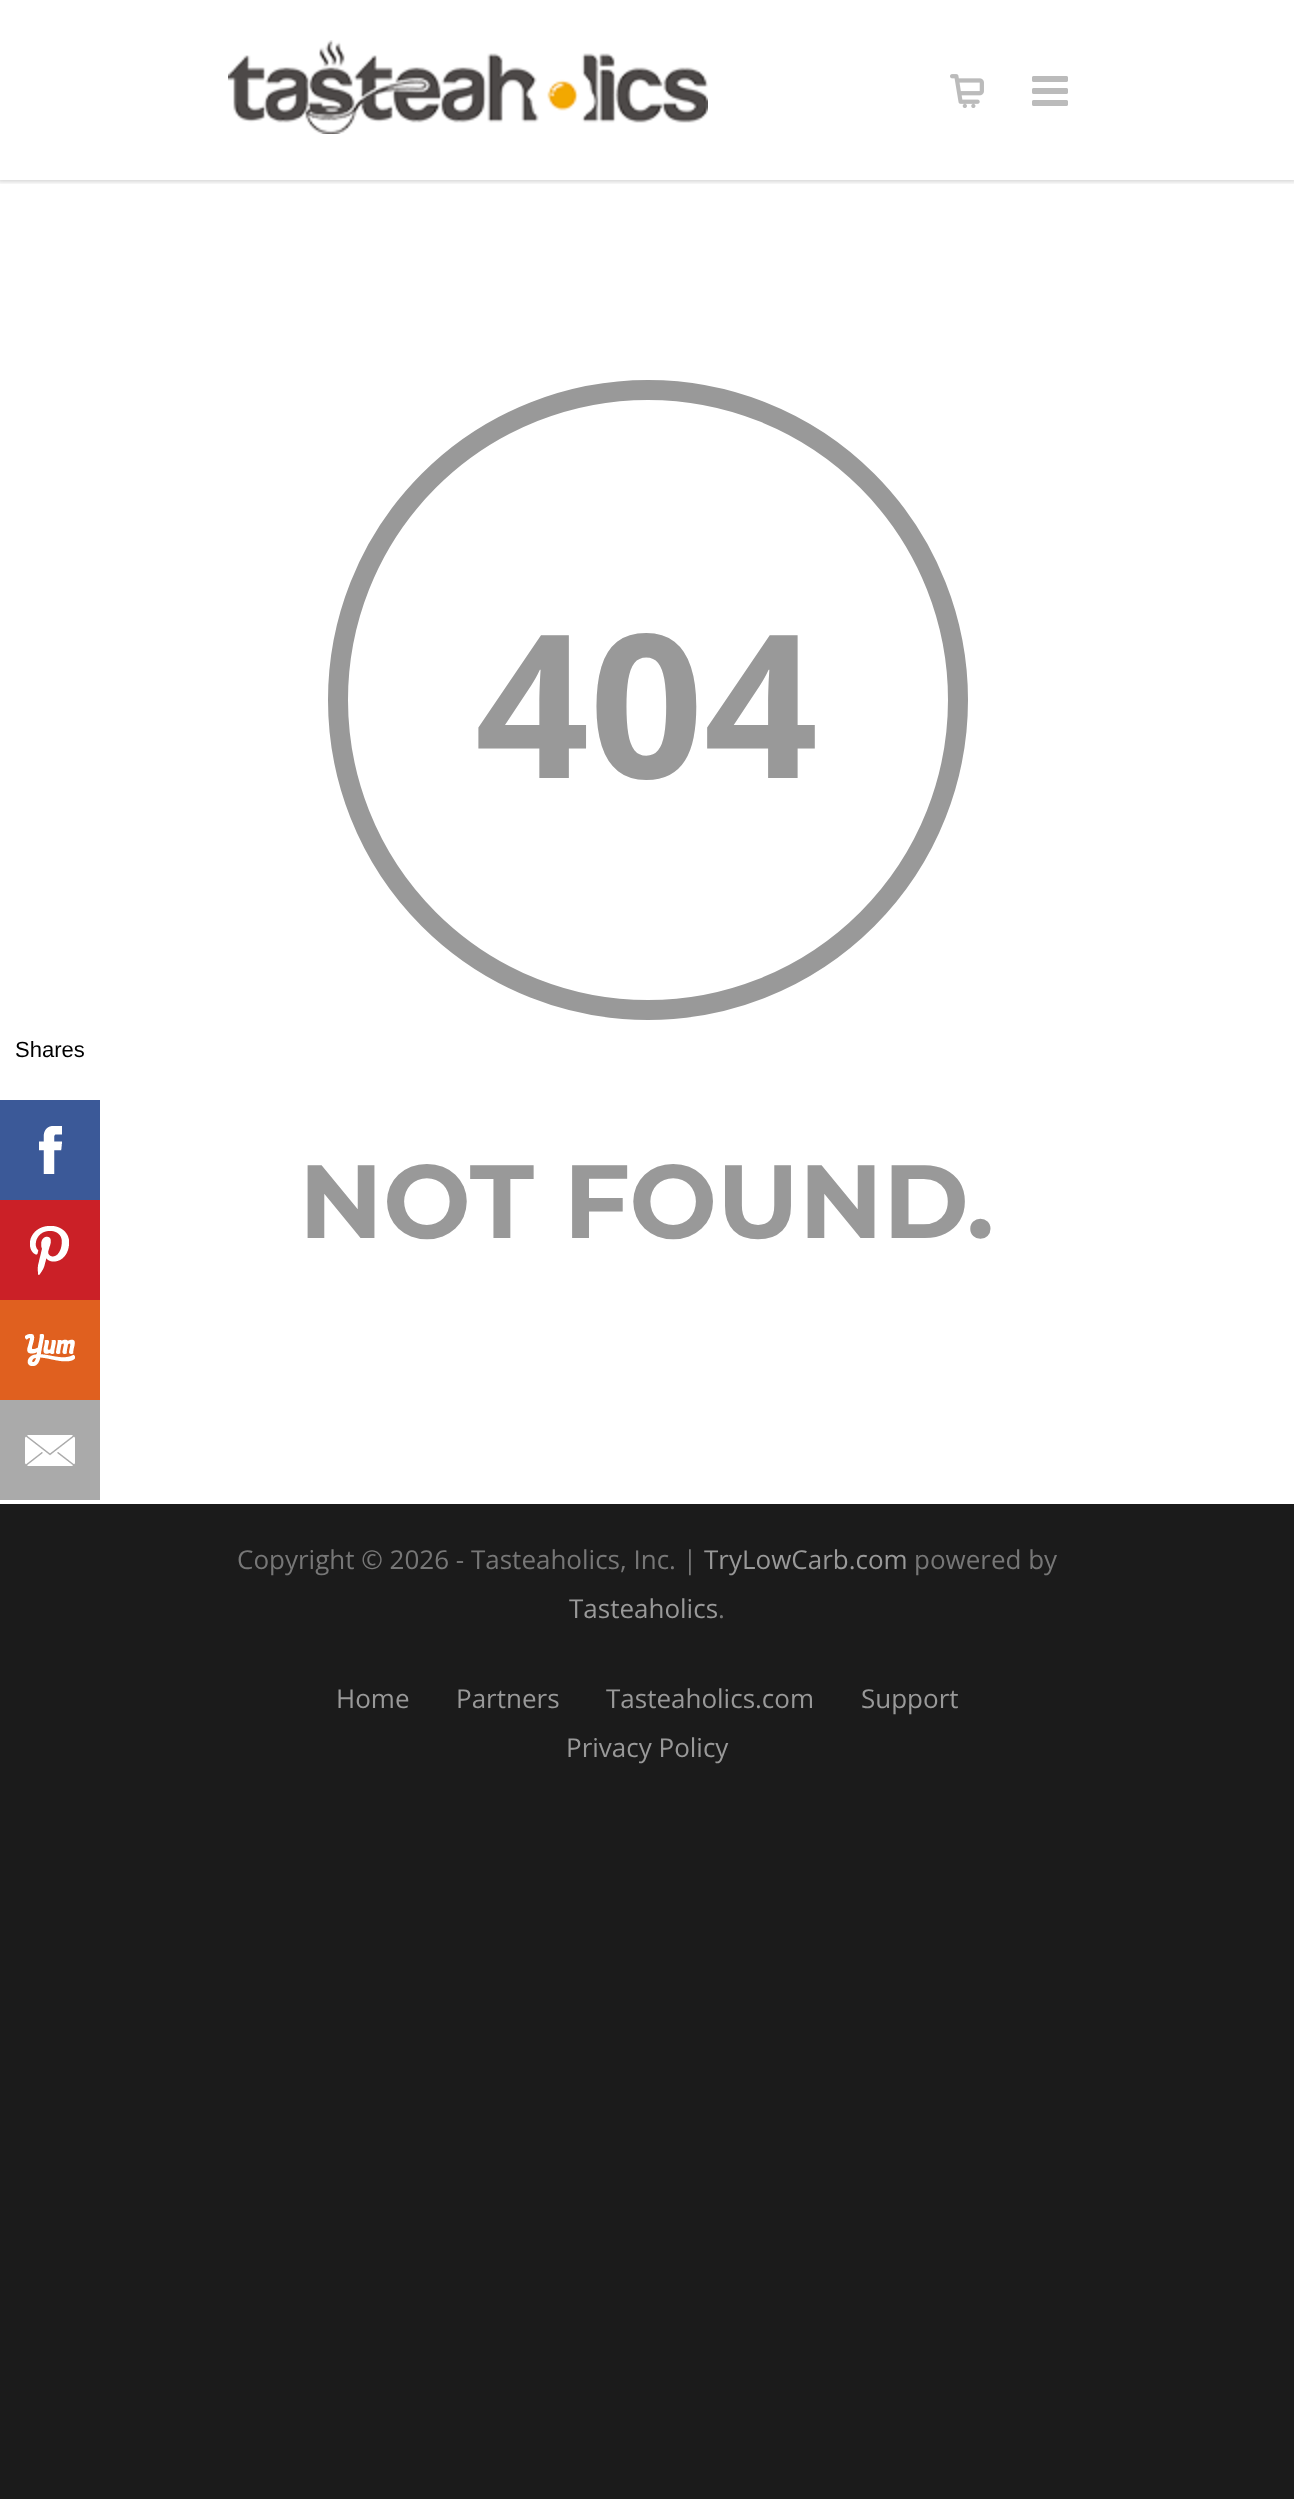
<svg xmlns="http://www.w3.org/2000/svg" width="1294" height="2499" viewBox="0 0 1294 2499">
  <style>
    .t1 { font: 22px Liberation Sans; fill: #000; }
    .t2 { font: bold 200px Open Sans; fill: #999; }
    .t3 { font: bold 104px Montserrat; fill: #999; }
    .t4 { font: 26px Open Sans; fill: #777; }
    .t5 { font: 26px Open Sans; fill: #999; }
  </style>
  <defs>
    <clipPath id="clip1"><rect x="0" y="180" width="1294" height="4"/></clipPath>
  </defs>
  <rect width="100%" height="100%" fill="#1b1b1b"/>
  <rect x="0" y="0" width="1294" height="1504" fill="#fff"/>
  <text x="15" y="1057" class="t1">Shares</text>
  <rect x="0" y="1100" width="100" height="100" fill="#3b5998"/>
  <image x="39" y="1126" width="23" height="48" href="images/1.png"/>
  <rect x="0" y="1200" width="100" height="100" fill="#cb2027"/>
  <image x="30" y="1226" width="39" height="49" href="images/2.png"/>
  <rect x="0" y="1300" width="100" height="100" fill="#e0601f"/>
  <image x="25" y="1334" width="50" height="32" href="images/3.png"/>
  <rect x="0" y="1400" width="100" height="100" fill="#aaa"/>
  <image x="25" y="1435" width="50" height="31" href="images/4.png"/>
  <g clip-path="url(#clip1)">
    <rect x="-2" y="-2" width="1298" height="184" fill="#00000029" filter="blur(2px)"/>
  </g>
  <image x="228" y="40" width="480" height="94" href="images/5.png"/>
  <image x="950" y="74" width="34" height="34" href="images/6.png"/>
  <image x="1032" y="76" width="36" height="30" href="images/7.png"/>
  <circle cx="648" cy="700" r="310" fill="none" stroke="#999" stroke-width="20"/>
  <text x="475" y="778" class="t2">404</text>
  <text x="299" y="1238" class="t3">NOT FOUND.</text>
  <text x="237" y="1569" class="t4">Copyright © 2026 - Tasteaholics, Inc. |</text>
  <text x="704" y="1569" class="t5">TryLowCarb.com</text>
  <text x="914" y="1569" class="t4">powered by</text>
  <text x="569" y="1618" class="t5">Tasteaholics</text>
  <text x="718" y="1618" class="t4">.</text>
  <text x="336" y="1708" class="t5">Home</text>
  <text x="456" y="1708" class="t5">Partners</text>
  <text x="606" y="1708" class="t5">Tasteaholics.com</text>
  <text x="861" y="1708" class="t5">Support</text>
  <text x="566" y="1757" class="t5">Privacy Policy</text>
</svg>
